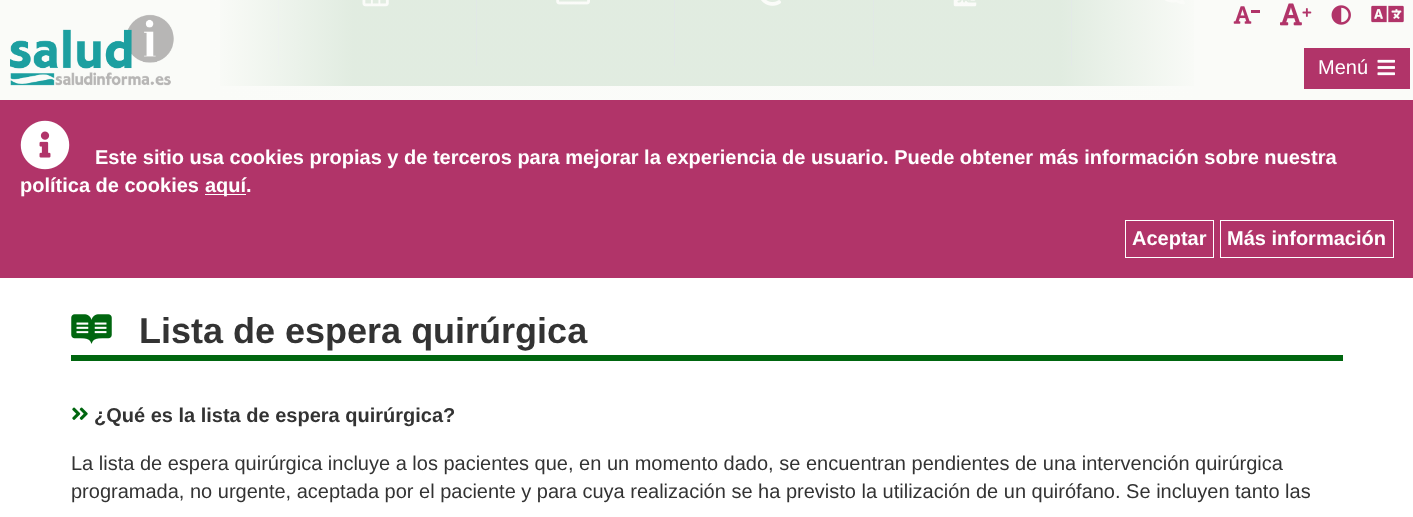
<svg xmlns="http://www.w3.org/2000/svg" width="1413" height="517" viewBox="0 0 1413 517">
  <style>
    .t1 { font: 20px Liberation Sans; fill: #fff; }
    .t2 { font: bold 20px Liberation Sans; fill: #fff; }
    .t3 { font: bold 36px Liberation Sans; fill: #333; }
    .t4 { font: bold 20px Liberation Sans; fill: #333; }
    .t5 { font: 20px Liberation Sans; fill: #333; }
  </style>
  <defs>
    <linearGradient id="g1" gradientUnits="userSpaceOnUse" x1="0" y1="139" x2="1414" y2="139"><stop offset="0" stop-color="#fafbf8"/><stop offset="0.15" stop-color="#fafbf8"/><stop offset="0.25" stop-color="#fafbf8" stop-opacity="0.9"/><stop offset="0.75" stop-color="#fafbf8" stop-opacity="0.9"/><stop offset="0.85" stop-color="#fafbf8"/></linearGradient>
  </defs>
  <rect width="100%" height="100%" fill="#fff"/>
  <rect x="220" y="0" width="974" height="86" fill="#00660f"/>
  <rect x="278" y="0" width="1" height="66" fill="#003f3e"/>
  <image x="362" y="0" width="27" height="7" href="images/9.png"/>
  <rect x="476" y="0" width="1" height="66" fill="#003f3e"/>
  <image x="556" y="0" width="34" height="5" href="images/10.png"/>
  <rect x="674" y="0" width="1" height="66" fill="#003f3e"/>
  <image x="761" y="0" width="21" height="6" href="images/11.png"/>
  <rect x="873" y="0" width="1" height="66" fill="#003f3e"/>
  <image x="953" y="0" width="24" height="7" href="images/12.png"/>
  <rect x="1071" y="0" width="1" height="66" fill="#003f3e"/>
  <image x="1164" y="0" width="21" height="5" href="images/13.png"/>
  <rect x="0" y="0" width="1413" height="100" fill="url(#g1)"/>
  <image x="10" y="14" width="164" height="72" href="images/1.png"/>
  <image x="1233" y="6" width="19" height="18" href="images/2.png"/>
  <rect x="1251" y="10" width="9" height="3" fill="#b13469"/>
  <image x="1280" y="3" width="22" height="23" href="images/3.png"/>
  <image x="1302" y="8" width="10" height="9" href="images/4.png"/>
  <image x="1331" y="5" width="20" height="20" href="images/5.png"/>
  <image x="1371" y="5" width="33" height="18" href="images/6.png"/>
  <rect x="1304" y="48" width="106" height="41" fill="#b13469"/>
  <text x="1318" y="74" class="t1">Menú</text>
  <image x="1377" y="59" width="18" height="17" href="images/7.png"/>
  <rect x="0" y="100" width="1413" height="178" fill="#b13469"/>
  <image x="20" y="120" width="50" height="50" href="images/8.png"/>
  <text x="95" y="164" class="t2">Este sitio usa cookies propias y de terceros para mejorar la experiencia de usuario. Puede obtener más información sobre nuestra</text>
  <text x="20" y="192" class="t2">política de cookies</text>
  <rect x="205" y="194" width="41" height="1" fill="#fff"/>
  <text x="205" y="192" class="t2">aquí.</text>
  <rect x="1125.5" y="220.5" width="88" height="37" fill="none" stroke="#fff"/>
  <text x="1132" y="245" class="t2">Aceptar</text>
  <rect x="1220.5" y="220.5" width="173" height="37" fill="none" stroke="#fff"/>
  <text x="1227" y="245" class="t2">Más información</text>
  <rect x="71" y="355" width="1272" height="6" fill="#00660f"/>
  <image x="71" y="314" width="41" height="30" href="images/14.png"/>
  <text x="139" y="343" class="t3">Lista de espera quirúrgica</text>
  <image x="72" y="407" width="16" height="13" href="images/15.png"/>
  <text x="94" y="422" class="t4">¿Qué es la lista de espera quirúrgica?</text>
  <text x="71" y="470" class="t5">La lista de espera quirúrgica incluye a los pacientes que, en un momento dado, se encuentran pendientes de una intervención quirúrgica</text>
  <text x="71" y="498" class="t5">programada, no urgente, aceptada por el paciente y para cuya realización se ha previsto la utilización de un quirófano. Se incluyen tanto las</text>
</svg>
